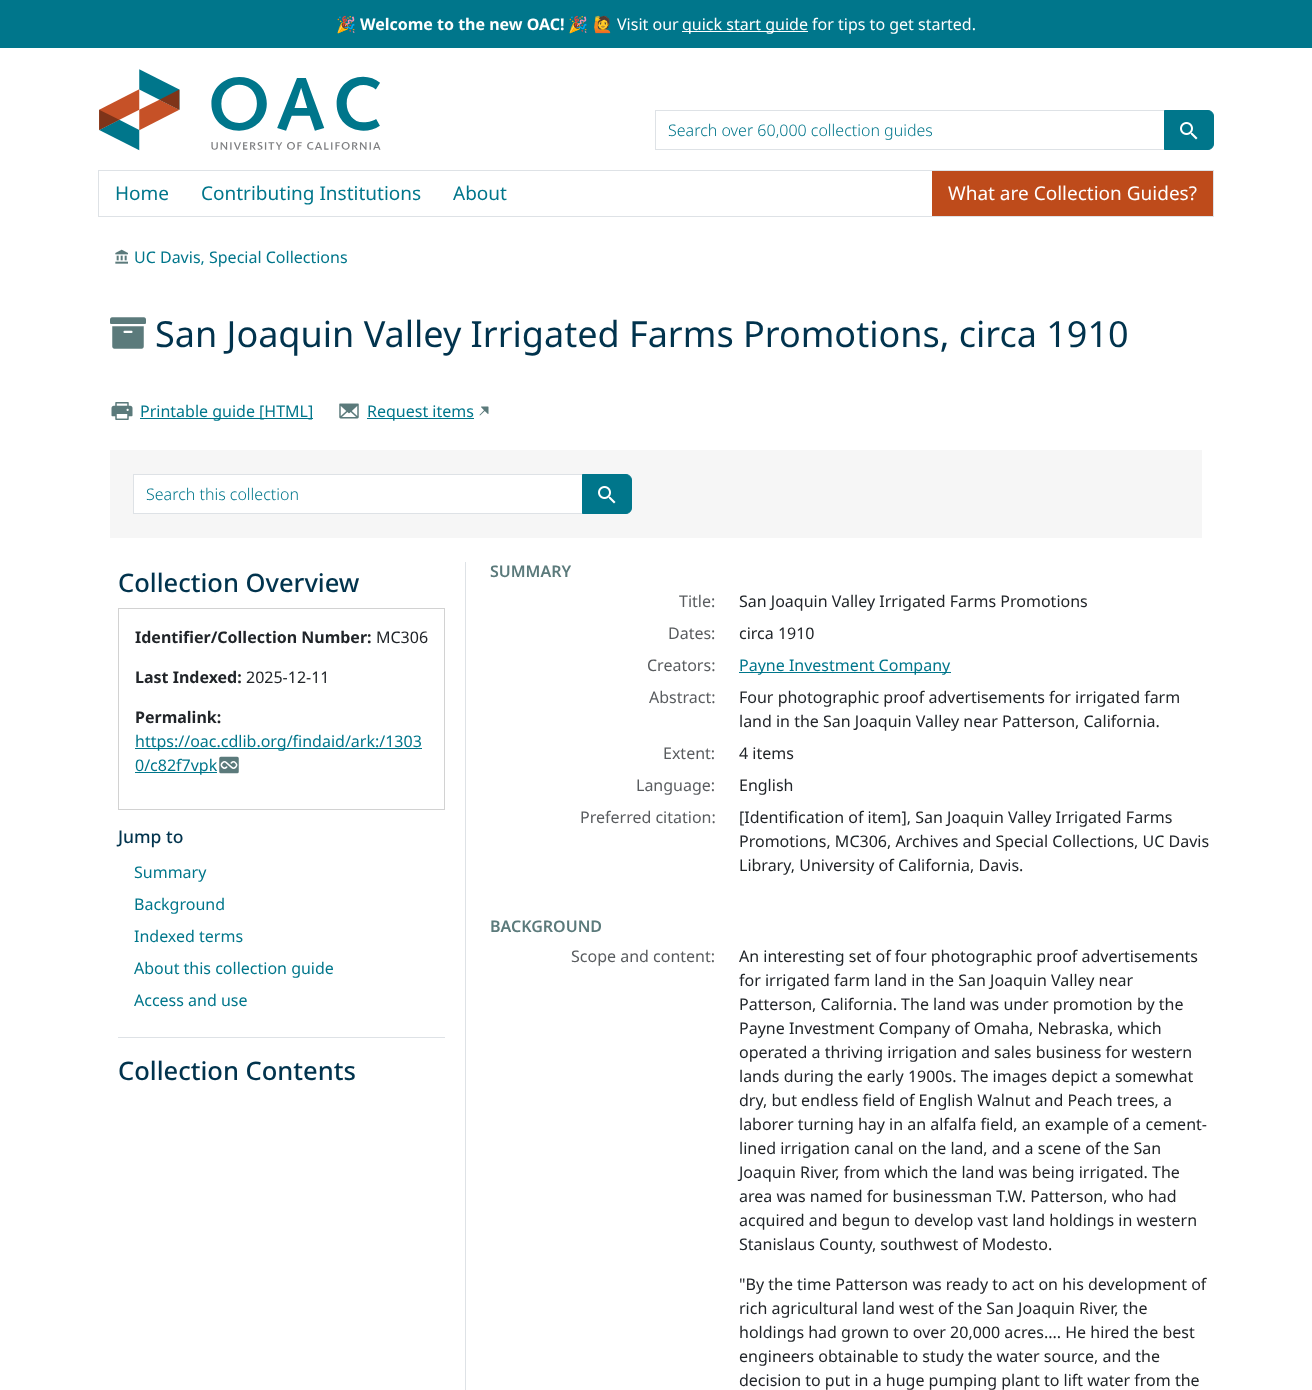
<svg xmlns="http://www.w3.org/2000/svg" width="1312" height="1390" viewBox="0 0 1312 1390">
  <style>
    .t1 { font: bold 16px Noto Color Emoji; fill: #fff; }
    .t2 { font: bold 16px Noto Sans; fill: #fff; }
    .t3 { font: 16px Noto Color Emoji; fill: #fff; }
    .t4 { font: 16px Noto Sans; fill: #fff; }
    .t5 { font: 300 16px Noto Sans; fill: #00768b; }
    .t6 { font: 19px Noto Sans; fill: #00768b; }
    .t7 { font: 19px Noto Sans; fill: #fff; }
    .t8 { font: 16px Noto Sans; fill: #00768b; }
    .t9 { font: 36px Noto Sans; fill: #01334d; }
    .t10 { font: 500 25.5px Noto Sans; fill: #01334d; }
    .t11 { font: bold 16px Noto Sans; fill: #212529; }
    .t12 { font: 16px Noto Sans; fill: #212529; }
    .t13 { font: 500 17.5px Noto Sans; fill: #01334d; }
    .t14 { font: 600 16px Noto Sans; fill: #5b7a7b; }
    .t15 { font: 16px Noto Sans; fill: #595c5f; }
  </style>
  <rect width="100%" height="100%" fill="#fff"/>
  <rect x="0" y="0" width="1312" height="48" fill="#00768b"/>
  <text x="336" y="30" class="t1">🎉</text>
  <text x="360" y="30" class="t2">Welcome to the new OAC!</text>
  <text x="568" y="30" class="t1">🎉</text>
  <text x="593" y="30" class="t3">🙋</text>
  <text x="617" y="30" class="t4">Visit our</text>
  <rect x="682" y="31" width="126" height="1" fill="#fff"/>
  <text x="682" y="30" class="t4">quick start guide for tips to get started.</text>
  <image x="99" y="69" width="282" height="82" href="images/1.png"/>
  <rect x="655.5" y="110.5" width="509" height="39" fill="none" stroke="#dee2e6"/>
  <text x="668" y="136" class="t5">Search over 60,000 collection guides</text>
  <path d="M1164.5 110.5H1208C1211 110.5 1213.5 113 1213.5 116V144C1213.5 147 1211 149.5 1208 149.5H1164.5Z" fill="#00768b" stroke="#00768b"/>
  <image x="1180" y="122" width="18" height="18" href="images/2.png"/>
  <rect x="98.5" y="170.5" width="1115" height="46" fill="none" stroke="#dee2e6"/>
  <text x="115" y="200" class="t6">Home</text>
  <text x="201" y="200" class="t6">Contributing Institutions</text>
  <text x="453" y="200" class="t6">About</text>
  <rect x="932" y="171" width="281" height="45" fill="#be4b1b"/>
  <text x="948" y="200" class="t7">What are Collection Guides?</text>
  <image x="115" y="249" width="13" height="15" href="images/3.png"/>
  <text x="134" y="263" class="t8">UC Davis, Special Collections</text>
  <image x="110" y="317" width="36" height="32" href="images/4.png"/>
  <text x="155" y="347" class="t9">San Joaquin Valley Irrigated Farms Promotions, circa 1910</text>
  <image x="111" y="402" width="22" height="18" href="images/5.png"/>
  <rect x="140" y="418" width="173" height="1" fill="#00768b"/>
  <text x="140" y="417" class="t8">Printable guide [HTML]</text>
  <image x="339" y="403" width="20" height="16" href="images/6.png"/>
  <rect x="367" y="418" width="107" height="1" fill="#00768b"/>
  <text x="367" y="417" class="t8">Request items</text>
  <image x="479" y="406" width="10" height="10" href="images/7.png"/>
  <rect x="110" y="450" width="1092" height="88" fill="#f6f6f6"/>
  <rect x="133.5" y="474.5" width="449" height="39" fill="#fff" stroke="#dee2e6"/>
  <text x="146" y="500" class="t5">Search this collection</text>
  <path d="M582.5 474.5H626C629 474.5 631.5 477 631.5 480V508C631.5 511 629 513.5 626 513.5H582.5Z" fill="#00768b" stroke="#00768b"/>
  <image x="598" y="486" width="18" height="18" href="images/2.png"/>
  <rect x="465" y="562" width="1" height="828" fill="#dee2e6"/>
  <rect x="118" y="1037" width="327" height="1" fill="#dee2e6"/>
  <text x="118" y="592" class="t10">Collection Overview</text>
  <rect x="118.5" y="608.5" width="326" height="201" fill="none" stroke="#d2d2d2"/>
  <text x="135" y="643" class="t11">Identifier/Collection Number:</text>
  <text x="376" y="643" class="t12">MC306</text>
  <text x="135" y="683" class="t11">Last Indexed:</text>
  <text x="246" y="683" class="t12">2025-12-11</text>
  <text x="135" y="723" class="t11">Permalink:</text>
  <rect x="135" y="748" width="287" height="1" fill="#00768b"/>
  <text x="135" y="747" class="t8">https://oac.cdlib.org/findaid/ark:/1303</text>
  <rect x="135" y="772" width="82" height="1" fill="#00768b"/>
  <text x="135" y="771" class="t8">0/c82f7vpk</text>
  <image x="219" y="756" width="20" height="18" href="images/8.png"/>
  <text x="118" y="843" class="t13">Jump to</text>
  <text x="134" y="878" class="t8">Summary</text>
  <text x="134" y="910" class="t8">Background</text>
  <text x="134" y="942" class="t8">Indexed terms</text>
  <text x="134" y="974" class="t8">About this collection guide</text>
  <text x="134" y="1006" class="t8">Access and use</text>
  <text x="118" y="1080" class="t10">Collection Contents</text>
  <text x="490" y="577" class="t14">SUMMARY</text>
  <text x="679" y="607" class="t15">Title:</text>
  <text x="739" y="607" class="t12">San Joaquin Valley Irrigated Farms Promotions</text>
  <text x="668" y="639" class="t15">Dates:</text>
  <text x="739" y="639" class="t12">circa 1910</text>
  <text x="647" y="671" class="t15">Creators:</text>
  <rect x="739" y="672" width="212" height="1" fill="#00768b"/>
  <text x="739" y="671" class="t8">Payne Investment Company</text>
  <text x="649" y="703" class="t15">Abstract:</text>
  <text x="739" y="703" class="t12">Four photographic proof advertisements for irrigated farm</text>
  <text x="739" y="727" class="t12">land in the San Joaquin Valley near Patterson, California.</text>
  <text x="663" y="759" class="t15">Extent:</text>
  <text x="739" y="759" class="t12">4 items</text>
  <text x="636" y="791" class="t15">Language:</text>
  <text x="739" y="791" class="t12">English</text>
  <text x="580" y="823" class="t15">Preferred citation:</text>
  <text x="739" y="823" class="t12">[Identification of item], San Joaquin Valley Irrigated Farms</text>
  <text x="739" y="847" class="t12">Promotions, MC306, Archives and Special Collections, UC Davis</text>
  <text x="739" y="871" class="t12">Library, University of California, Davis.</text>
  <text x="490" y="932" class="t14">BACKGROUND</text>
  <text x="571" y="962" class="t15">Scope and content:</text>
  <text x="739" y="962" class="t12">An interesting set of four photographic proof advertisements</text>
  <text x="739" y="986" class="t12">for irrigated farm land in the San Joaquin Valley near</text>
  <text x="739" y="1010" class="t12">Patterson, California. The land was under promotion by the</text>
  <text x="739" y="1034" class="t12">Payne Investment Company of Omaha, Nebraska, which</text>
  <text x="739" y="1058" class="t12">operated a thriving irrigation and sales business for western</text>
  <text x="739" y="1082" class="t12">lands during the early 1900s. The images depict a somewhat</text>
  <text x="739" y="1106" class="t12">dry, but endless field of English Walnut and Peach trees, a</text>
  <text x="739" y="1130" class="t12">laborer turning hay in an alfalfa field, an example of a cement-</text>
  <text x="739" y="1154" class="t12">lined irrigation canal on the land, and a scene of the San</text>
  <text x="739" y="1178" class="t12">Joaquin River, from which the land was being irrigated. The</text>
  <text x="739" y="1202" class="t12">area was named for businessman T.W. Patterson, who had</text>
  <text x="739" y="1226" class="t12">acquired and begun to develop vast land holdings in western</text>
  <text x="739" y="1250" class="t12">Stanislaus County, southwest of Modesto.</text>
  <text x="739" y="1290" class="t12">"By the time Patterson was ready to act on his development of</text>
  <text x="739" y="1314" class="t12">rich agricultural land west of the San Joaquin River, the</text>
  <text x="739" y="1338" class="t12">holdings had grown to over 20,000 acres.... He hired the best</text>
  <text x="739" y="1362" class="t12">engineers obtainable to study the water source, and the</text>
  <text x="739" y="1386" class="t12">decision to put in a huge pumping plant to lift water from the</text>
</svg>
